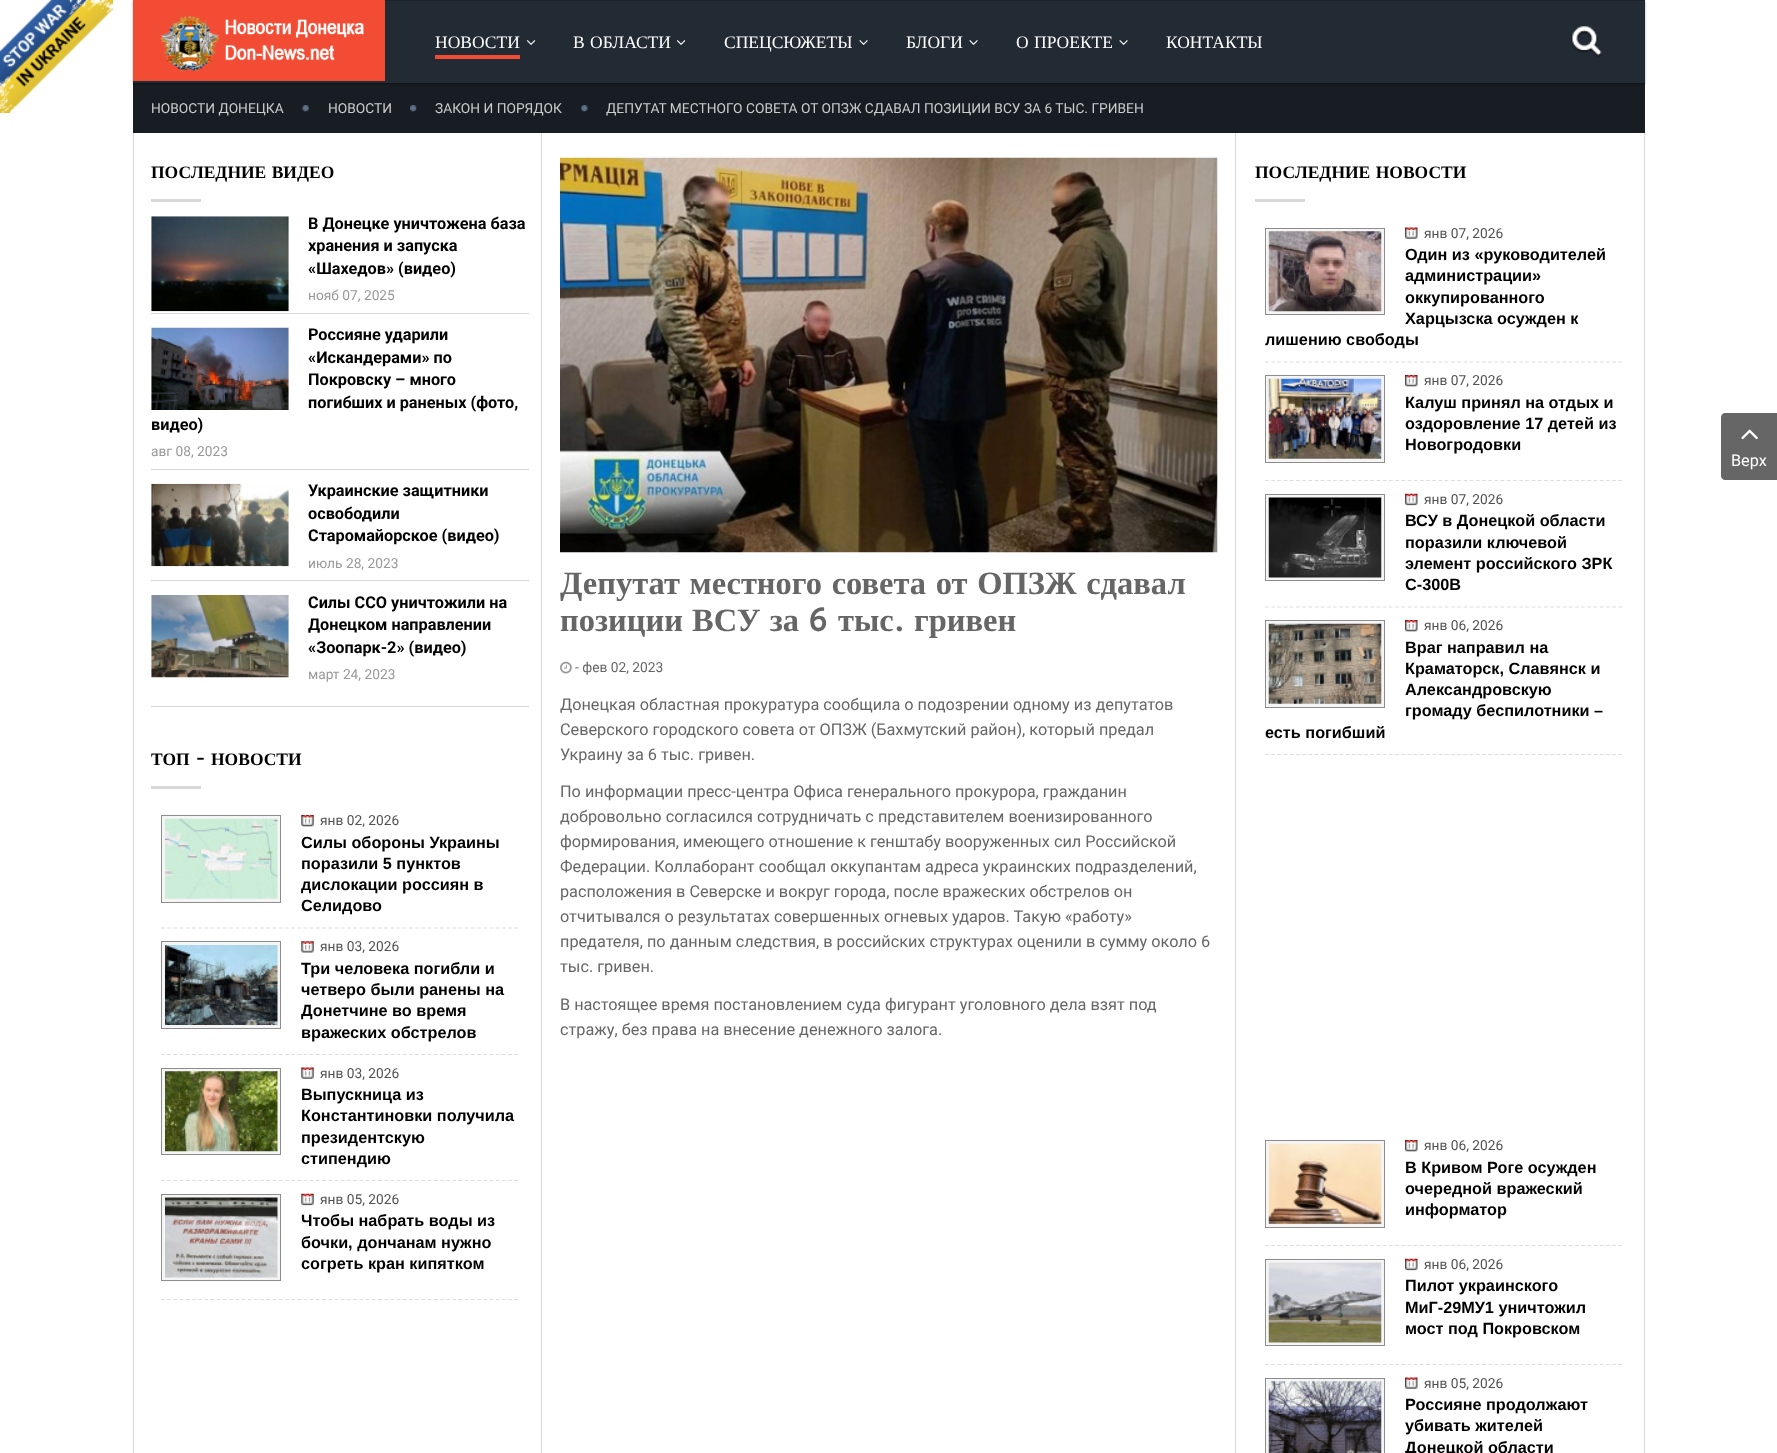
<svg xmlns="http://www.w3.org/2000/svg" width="1777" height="1453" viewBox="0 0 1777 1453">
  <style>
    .t1 { font: 17.5px Liberation Serif; fill: #fff; }
    .t2 { font: 13.75px Roboto; fill: #ccc; }
    .t3 { font: bold 17.5px Liberation Serif; fill: #000; }
    .t4 { font: bold 16.25px Roboto; fill: #000; }
    .t5 { font: 13.75px Roboto; fill: #999; }
    .t6 { font: bold 17.5px ABeeZee; fill: #000; }
    .t7 { font: 13.75px Roboto; fill: #525252; }
    .t8 { font: bold 16.25px Liberation Sans; fill: #000; }
    .t9 { font: bold 32.5px Liberation Serif; fill: #666; }
    .t10 { font: bold 32.5px ABeeZee; fill: #666; }
    .t11 { font: 13.75px Roboto; fill: #666; }
    .t12 { font: 16.25px Roboto; fill: #666; }
    .t13 { font: 16.25px Roboto; fill: #fff; }
  </style>
  <rect width="100%" height="100%" fill="#fff"/>
  <image x="0" y="0" width="113" height="113" href="images/1.png"/>
  <rect x="133" y="83" width="1512" height="50" fill="#171d23"/>
  <rect x="133" y="1" width="1512" height="83" fill="#00000057" filter="blur(1px)"/>
  <rect x="133" y="1" width="1512" height="82" fill="#222a33"/>
  <rect x="133" y="0" width="252" height="81" fill="#f24d34"/>
  <image x="160" y="16" width="204" height="56" href="images/2.png"/>
  <rect x="385" y="0" width="1260" height="1" fill="#1b2229"/>
  <text x="435" y="48" class="t1">НОВОСТИ</text>
  <rect x="435" y="55" width="85" height="4" fill="#f24d34"/>
  <image x="526" y="40" width="10" height="5" href="images/3.png"/>
  <text x="573" y="48" word-spacing="1" class="t1">В ОБЛАСТИ</text>
  <image x="676" y="40" width="10" height="5" href="images/3.png"/>
  <text x="724" y="48" class="t1">СПЕЦСЮЖЕТЫ</text>
  <image x="859" y="40" width="9" height="5" href="images/4.png"/>
  <text x="906" y="48" class="t1">БЛОГИ</text>
  <image x="969" y="40" width="9" height="5" href="images/4.png"/>
  <text x="1016" y="48" word-spacing="1" class="t1">О ПРОЕКТЕ</text>
  <image x="1119" y="40" width="9" height="5" href="images/4.png"/>
  <text x="1166" y="48" class="t1">КОНТАКТЫ</text>
  <image x="1571" y="26" width="31" height="31" href="images/5.png"/>
  <text x="151" y="113" class="t2">НОВОСТИ ДОНЕЦКА</text>
  <image x="302" y="105" width="7" height="7" href="images/6.png"/>
  <text x="328" y="113" class="t2">НОВОСТИ</text>
  <image x="410" y="105" width="7" height="7" href="images/7.png"/>
  <text x="435" y="113" class="t2">ЗАКОН И ПОРЯДОК</text>
  <image x="581" y="105" width="7" height="7" href="images/8.png"/>
  <text x="606" y="113" class="t2">ДЕПУТАТ МЕСТНОГО СОВЕТА ОТ ОПЗЖ СДАВАЛ ПОЗИЦИИ ВСУ ЗА 6 ТЫС. ГРИВЕН</text>
  <rect x="133" y="133" width="1" height="1320" fill="#d7d7d7"/>
  <text x="151" y="178" word-spacing="1" class="t3">ПОСЛЕДНИЕ ВИДЕО</text>
  <rect x="151" y="199" width="50" height="3" fill="#d7d7d7"/>
  <rect x="151" y="313" width="378" height="1" fill="#d7d7d7"/>
  <image x="151" y="216" width="138" height="96" href="images/9.png"/>
  <text x="308" y="229" class="t4">В Донецке уничтожена база</text>
  <text x="308" y="251" class="t4">хранения и запуска</text>
  <text x="308" y="274" class="t4">«Шахедов» (видео)</text>
  <text x="308" y="300" class="t5">нояб 07, 2025</text>
  <rect x="151" y="469" width="378" height="1" fill="#d7d7d7"/>
  <image x="151" y="327" width="138" height="83" href="images/10.png"/>
  <text x="308" y="340" class="t4">Россияне ударили</text>
  <text x="308" y="363" class="t4">«Искандерами» по</text>
  <text x="308" y="385" class="t4">Покровску – много</text>
  <text x="308" y="408" class="t4">погибших и раненых (фото,</text>
  <text x="151" y="430" class="t4">видео)</text>
  <text x="151" y="456" class="t5">авг 08, 2023</text>
  <rect x="151" y="580" width="378" height="1" fill="#d7d7d7"/>
  <image x="151" y="483" width="138" height="84" href="images/11.png"/>
  <text x="308" y="496" class="t4">Украинские защитники</text>
  <text x="308" y="519" class="t4">освободили</text>
  <text x="308" y="541" class="t4">Старомайорское (видео)</text>
  <text x="308" y="568" class="t5">июль 28, 2023</text>
  <image x="151" y="595" width="138" height="83" href="images/12.png"/>
  <text x="308" y="608" class="t4">Силы ССО уничтожили на</text>
  <text x="308" y="630" class="t4">Донецком направлении</text>
  <text x="308" y="653" class="t4">«Зоопарк-2» (видео)</text>
  <text x="308" y="679" class="t5">март 24, 2023</text>
  <rect x="151" y="706" width="378" height="1" fill="#d7d7d7"/>
  <text x="151" y="765" class="t3">ТОП</text>
  <text x="195" y="765" class="t6">-</text>
  <text x="211" y="765" class="t3">НОВОСТИ</text>
  <rect x="151" y="786" width="50" height="3" fill="#d7d7d7"/>
  <path d="M161 928H519" fill="none" stroke="#ddd" stroke-width="1.2" stroke-dasharray="3.75 2.45"/>
  <rect x="161.5" y="815.5" width="119" height="87" fill="#f6f5f5" stroke="#8e8c8c"/>
  <image x="165" y="818" width="113" height="81" href="images/13.png"/>
  <image x="301" y="815" width="13" height="12" href="images/14.png"/>
  <text x="320" y="825" class="t7">янв 02, 2026</text>
  <text x="301" y="848" class="t8">Силы обороны Украины</text>
  <text x="301" y="869" class="t8">поразили 5 пунктов</text>
  <text x="301" y="890" class="t8">дислокации россиян в</text>
  <text x="301" y="911" class="t8">Селидово</text>
  <path d="M161 1054.5H519" fill="none" stroke="#ddd" stroke-width="1.2" stroke-dasharray="3.75 2.45"/>
  <rect x="161.5" y="941.5" width="119" height="87" fill="#f6f5f5" stroke="#8e8c8c"/>
  <image x="165" y="945" width="113" height="80" href="images/15.png"/>
  <image x="301" y="941" width="13" height="12" href="images/16.png"/>
  <text x="320" y="951" class="t7">янв 03, 2026</text>
  <text x="301" y="974" class="t8">Три человека погибли и</text>
  <text x="301" y="995" class="t8">четверо были ранены на</text>
  <text x="301" y="1016" class="t8">Донетчине во время</text>
  <text x="301" y="1038" class="t8">вражеских обстрелов</text>
  <path d="M161 1180.5H519" fill="none" stroke="#ddd" stroke-width="1.2" stroke-dasharray="3.75 2.45"/>
  <rect x="161.5" y="1068.5" width="119" height="86" fill="#f6f5f5" stroke="#8e8c8c"/>
  <image x="165" y="1071" width="113" height="81" href="images/17.png"/>
  <image x="301" y="1067" width="13" height="12" href="images/18.png"/>
  <text x="320" y="1078" class="t7">янв 03, 2026</text>
  <text x="301" y="1100" class="t8">Выпускница из</text>
  <text x="301" y="1121" class="t8">Константиновки получила</text>
  <text x="301" y="1143" class="t8">президентскую</text>
  <text x="301" y="1164" class="t8">стипендию</text>
  <path d="M161 1299.5H519" fill="none" stroke="#ddd" stroke-width="1.2" stroke-dasharray="3.75 2.45"/>
  <rect x="161.5" y="1194.5" width="119" height="86" fill="#f6f5f5" stroke="#8e8c8c"/>
  <image x="165" y="1197" width="113" height="81" href="images/19.png"/>
  <image x="301" y="1193" width="13" height="13" href="images/20.png"/>
  <text x="320" y="1204" class="t7">янв 05, 2026</text>
  <text x="301" y="1226" class="t8">Чтобы набрать воды из</text>
  <text x="301" y="1248" class="t8">бочки, дончанам нужно</text>
  <text x="301" y="1269" class="t8">согреть кран кипятком</text>
  <rect x="541" y="133" width="1" height="1320" fill="#d7d7d7"/>
  <image x="560" y="157" width="658" height="396" href="images/21.png"/>
  <text x="560" y="594" word-spacing="1.5" class="t9">Депутат местного совета от ОПЗЖ сдавал</text>
  <text x="560" y="631" word-spacing="1" class="t9">позиции ВСУ за</text>
  <text x="808" y="631" class="t10">6</text>
  <text x="838" y="631" class="t9">тыс</text>
  <text x="894" y="631" class="t10">.</text>
  <text x="914" y="631" class="t9">гривен</text>
  <image x="560" y="661" width="12" height="13" href="images/22.png"/>
  <text x="575" y="672" class="t11">- фев 02, 2023</text>
  <text x="560" y="710" class="t12">Донецкая областная прокуратура сообщила о подозрении одному из депутатов</text>
  <text x="560" y="735" class="t12">Северского городского совета от ОПЗЖ (Бахмутский район), который предал</text>
  <text x="560" y="760" class="t12">Украину за 6 тыс. гривен.</text>
  <text x="560" y="797" class="t12">По информации пресс-центра Офиса генерального прокурора, гражданин</text>
  <text x="560" y="822" class="t12">добровольно согласился сотрудничать с представителем военизированного</text>
  <text x="560" y="847" class="t12">формирования, имеющего отношение к генштабу вооруженных сил Российской</text>
  <text x="560" y="872" class="t12">Федерации. Коллаборант сообщал оккупантам адреса украинских подразделений,</text>
  <text x="560" y="897" class="t12">расположения в Северске и вокруг города, после вражеских обстрелов он</text>
  <text x="560" y="922" class="t12">отчитывался о результатах совершенных огневых ударов. Такую «работу»</text>
  <text x="560" y="947" class="t12">предателя, по данным следствия, в российских структурах оценили в сумму около 6</text>
  <text x="560" y="972" class="t12">тыс. гривен.</text>
  <text x="560" y="1010" class="t12">В настоящее время постановлением суда фигурант уголовного дела взят под</text>
  <text x="560" y="1035" class="t12">стражу, без права на внесение денежного залога.</text>
  <rect x="1235" y="133" width="1" height="1320" fill="#d7d7d7"/>
  <text x="1255" y="178" word-spacing="1" class="t3">ПОСЛЕДНИЕ НОВОСТИ</text>
  <rect x="1255" y="199" width="50" height="3" fill="#d7d7d7"/>
  <path d="M1265 362H1622.5" fill="none" stroke="#ddd" stroke-width="1.2" stroke-dasharray="3.75 2.45"/>
  <rect x="1265.5" y="228.5" width="119" height="86" fill="#f6f5f5" stroke="#8e8c8c"/>
  <image x="1268" y="231" width="114" height="81" href="images/23.png"/>
  <image x="1405" y="227" width="13" height="12" href="images/24.png"/>
  <text x="1424" y="238" class="t7">янв 07, 2026</text>
  <text x="1405" y="260" class="t8">Один из «руководителей</text>
  <text x="1405" y="281" class="t8">администрации»</text>
  <text x="1405" y="303" class="t8">оккупированного</text>
  <text x="1405" y="324" class="t8">Харцызска осужден к</text>
  <text x="1265" y="345" class="t8">лишению свободы</text>
  <path d="M1265 480.5H1622.5" fill="none" stroke="#ddd" stroke-width="1.2" stroke-dasharray="3.75 2.45"/>
  <rect x="1265.5" y="375.5" width="119" height="87" fill="#f6f5f5" stroke="#8e8c8c"/>
  <image x="1268" y="378" width="114" height="81" href="images/25.png"/>
  <image x="1405" y="375" width="13" height="12" href="images/26.png"/>
  <text x="1424" y="385" class="t7">янв 07, 2026</text>
  <text x="1405" y="408" class="t8">Калуш принял на отдых и</text>
  <text x="1405" y="429" class="t8">оздоровление 17 детей из</text>
  <text x="1405" y="450" class="t8">Новогродовки</text>
  <path d="M1265 607H1622.5" fill="none" stroke="#ddd" stroke-width="1.2" stroke-dasharray="3.75 2.45"/>
  <rect x="1265.5" y="494.5" width="119" height="86" fill="#f6f5f5" stroke="#8e8c8c"/>
  <image x="1268" y="497" width="114" height="81" href="images/27.png"/>
  <image x="1405" y="493" width="13" height="13" href="images/28.png"/>
  <text x="1424" y="504" class="t7">янв 07, 2026</text>
  <text x="1405" y="526" class="t8">ВСУ в Донецкой области</text>
  <text x="1405" y="548" class="t8">поразили ключевой</text>
  <text x="1405" y="569" class="t8">элемент российского ЗРК</text>
  <text x="1405" y="590" class="t8">С-300В</text>
  <path d="M1265 754.5H1622.5" fill="none" stroke="#ddd" stroke-width="1.2" stroke-dasharray="3.75 2.45"/>
  <rect x="1265.5" y="620.5" width="119" height="87" fill="#f6f5f5" stroke="#8e8c8c"/>
  <image x="1268" y="623" width="114" height="81" href="images/29.png"/>
  <image x="1405" y="620" width="13" height="12" href="images/26.png"/>
  <text x="1424" y="630" class="t7">янв 06, 2026</text>
  <text x="1405" y="653" class="t8">Враг направил на</text>
  <text x="1405" y="674" class="t8">Краматорск, Славянск и</text>
  <text x="1405" y="695" class="t8">Александровскую</text>
  <text x="1405" y="716" class="t8">громаду беспилотники –</text>
  <text x="1265" y="738" class="t8">есть погибший</text>
  <path d="M1265 1245.5H1622.5" fill="none" stroke="#ddd" stroke-width="1.2" stroke-dasharray="3.75 2.45"/>
  <rect x="1265.5" y="1140.5" width="119" height="87" fill="#f6f5f5" stroke="#8e8c8c"/>
  <image x="1268" y="1143" width="114" height="81" href="images/30.png"/>
  <image x="1405" y="1140" width="13" height="12" href="images/26.png"/>
  <text x="1424" y="1150" class="t7">янв 06, 2026</text>
  <text x="1405" y="1173" class="t8">В Кривом Роге осужден</text>
  <text x="1405" y="1194" class="t8">очередной вражеский</text>
  <text x="1405" y="1215" class="t8">информатор</text>
  <path d="M1265 1364.5H1622.5" fill="none" stroke="#ddd" stroke-width="1.2" stroke-dasharray="3.75 2.45"/>
  <rect x="1265.5" y="1259.5" width="119" height="86" fill="#f6f5f5" stroke="#8e8c8c"/>
  <image x="1268" y="1262" width="114" height="81" href="images/31.png"/>
  <image x="1405" y="1258" width="13" height="13" href="images/28.png"/>
  <text x="1424" y="1269" class="t7">янв 06, 2026</text>
  <text x="1405" y="1291" class="t8">Пилот украинского</text>
  <text x="1405" y="1313" class="t8">МиГ-29МУ1 уничтожил</text>
  <text x="1405" y="1334" class="t8">мост под Покровском</text>
  <rect x="1265.5" y="1378.5" width="119" height="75" fill="#f6f5f5" stroke="#8e8c8c"/>
  <image x="1268" y="1381" width="114" height="72" href="images/32.png"/>
  <image x="1405" y="1377" width="13" height="12" href="images/24.png"/>
  <text x="1424" y="1388" class="t7">янв 05, 2026</text>
  <text x="1405" y="1410" class="t8">Россияне продолжают</text>
  <text x="1405" y="1431" class="t8">убивать жителей</text>
  <text x="1405" y="1453" class="t8">Донецкой области</text>
  <rect x="1644" y="133" width="1" height="1320" fill="#d7d7d7"/>
  <path d="M1725 413H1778V480H1725C1723 480 1721 478 1721 476V417C1721 415 1723 413 1725 413Z" fill="#666"/>
  <image x="1741" y="429" width="17" height="11" href="images/33.png"/>
  <text x="1731" y="466" class="t13">Верх</text>
</svg>
